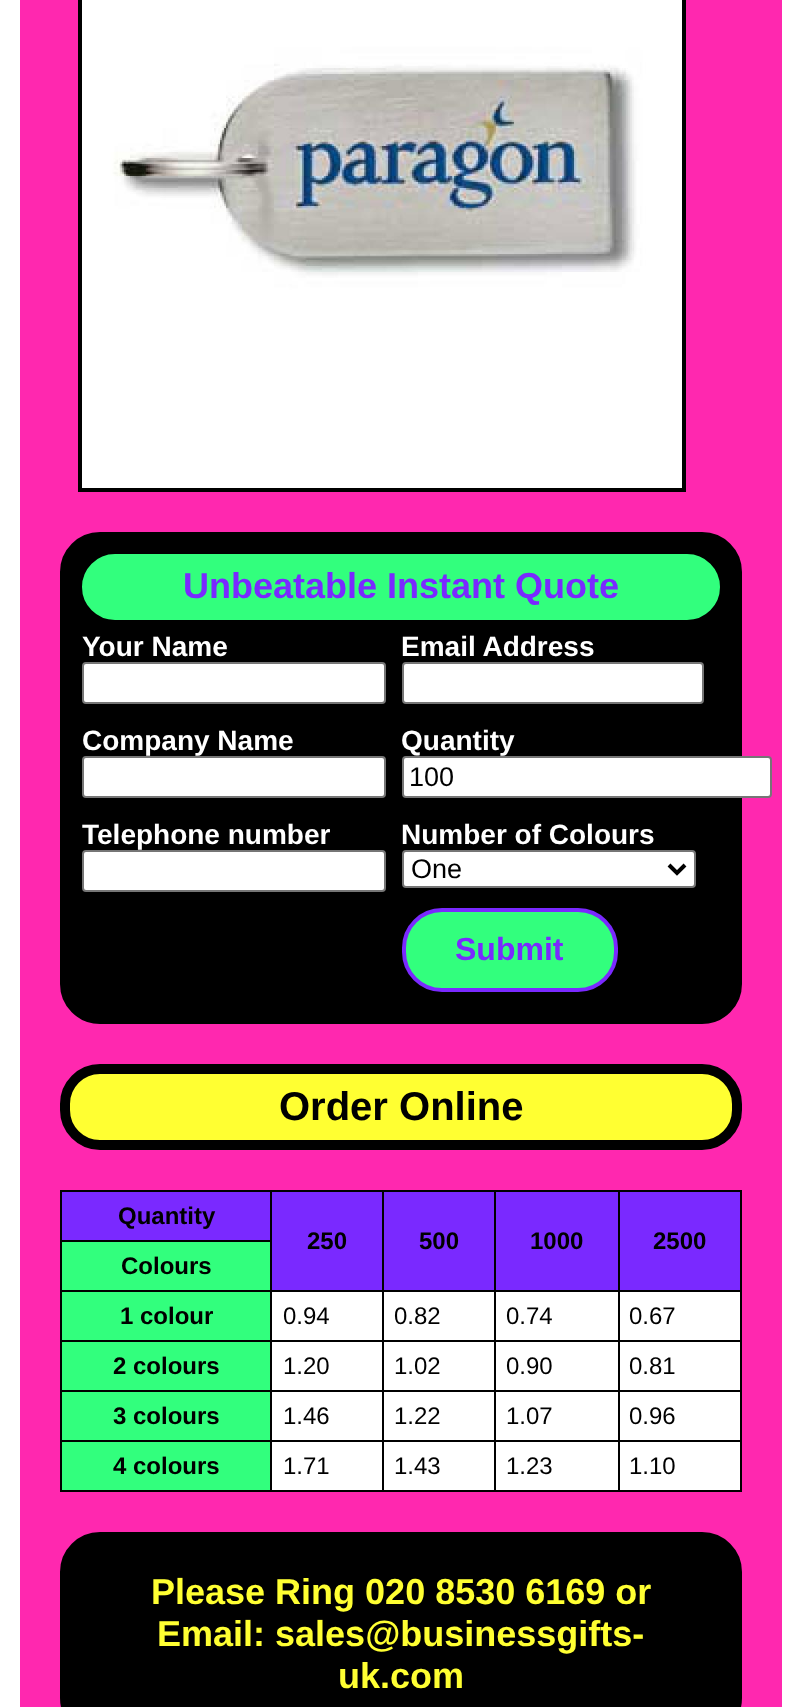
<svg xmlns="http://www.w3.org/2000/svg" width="802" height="1707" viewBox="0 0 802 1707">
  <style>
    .t1 { font: bold 36px Liberation Sans; fill: #7a29ff; }
    .t2 { font: bold 28px Liberation Sans; fill: #fff; }
    .t3 { font: 27px Liberation Sans; fill: #000; }
    .t4 { font: bold 32px Liberation Sans; fill: #7a29ff; }
    .t5 { font: bold 40px Liberation Sans; fill: #000; }
    .t6 { font: bold 24px Liberation Sans; fill: #000; }
    .t7 { font: 24px Liberation Sans; fill: #000; }
    .t8 { font: bold 36px Liberation Sans; fill: #ffff32; }
  </style>
  <rect width="100%" height="100%" fill="#fff"/>
  <rect x="20" y="0" width="762" height="1707" fill="#ff28af"/>
  <rect x="80" y="-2" width="604" height="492" fill="none" stroke="#000" stroke-width="4"/>
  <image x="82" y="0" width="600" height="488" href="images/1.png"/>
  <rect x="61" y="533" width="680" height="490" rx="39" fill="#000" stroke="#000" stroke-width="2"/>
  <rect x="83" y="555" width="636" height="64" rx="32" fill="#32ff7d" stroke="#32ff7d" stroke-width="2"/>
  <text x="183" y="598" class="t1">Unbeatable Instant Quote</text>
  <text x="82" y="656" class="t2">Your Name</text>
  <rect x="83" y="663" width="302" height="40" rx="3" fill="#fff" stroke="#767676" stroke-width="2"/>
  <text x="401" y="656" class="t2">Email Address</text>
  <rect x="403" y="663" width="300" height="40" rx="3" fill="#fff" stroke="#767676" stroke-width="2"/>
  <text x="82" y="750" class="t2">Company Name</text>
  <rect x="83" y="757" width="302" height="40" rx="3" fill="#fff" stroke="#767676" stroke-width="2"/>
  <text x="401" y="750" class="t2">Quantity</text>
  <rect x="403" y="757" width="368" height="40" rx="3" fill="#fff" stroke="#767676" stroke-width="2"/>
  <text x="409" y="786" class="t3">100</text>
  <text x="82" y="844" class="t2">Telephone number</text>
  <rect x="83" y="851" width="302" height="40" rx="3" fill="#fff" stroke="#767676" stroke-width="2"/>
  <text x="401" y="844" class="t2">Number of Colours</text>
  <rect x="403" y="851" width="292" height="36" rx="3" fill="#fff" stroke="#767676" stroke-width="2"/>
  <path d="M669 865L677 873L685 865" fill="none" stroke="#000" stroke-width="4"/>
  <text x="411" y="878" class="t3">One</text>
  <rect x="404" y="910" width="212" height="80" rx="38" fill="#32ff7d" stroke="#7a29ff" stroke-width="4"/>
  <text x="455" y="960" class="t4">Submit</text>
  <rect x="65" y="1069" width="672" height="76" rx="35" fill="#ffff32" stroke="#000" stroke-width="10"/>
  <text x="279" y="1120" class="t5">Order Online</text>
  <rect x="60" y="1190" width="682" height="302" fill="#000"/>
  <rect x="62" y="1192" width="208" height="48" fill="#7a29ff"/>
  <text x="118" y="1224" class="t6">Quantity</text>
  <rect x="272" y="1192" width="110" height="98" fill="#7a29ff"/>
  <text x="307" y="1249" class="t6">250</text>
  <rect x="384" y="1192" width="110" height="98" fill="#7a29ff"/>
  <text x="419" y="1249" class="t6">500</text>
  <rect x="496" y="1192" width="122" height="98" fill="#7a29ff"/>
  <text x="530" y="1249" class="t6">1000</text>
  <rect x="620" y="1192" width="120" height="98" fill="#7a29ff"/>
  <text x="653" y="1249" class="t6">2500</text>
  <rect x="62" y="1242" width="208" height="48" fill="#32ff7d"/>
  <text x="121" y="1274" class="t6">Colours</text>
  <rect x="62" y="1292" width="208" height="48" fill="#32ff7d"/>
  <text x="120" y="1324" class="t6">1 colour</text>
  <rect x="272" y="1292" width="110" height="48" fill="#fff"/>
  <text x="283" y="1324" class="t7">0.94</text>
  <rect x="384" y="1292" width="110" height="48" fill="#fff"/>
  <text x="394" y="1324" class="t7">0.82</text>
  <rect x="496" y="1292" width="122" height="48" fill="#fff"/>
  <text x="506" y="1324" class="t7">0.74</text>
  <rect x="620" y="1292" width="120" height="48" fill="#fff"/>
  <text x="629" y="1324" class="t7">0.67</text>
  <rect x="62" y="1342" width="208" height="48" fill="#32ff7d"/>
  <text x="113" y="1374" class="t6">2 colours</text>
  <rect x="272" y="1342" width="110" height="48" fill="#fff"/>
  <text x="283" y="1374" class="t7">1.20</text>
  <rect x="384" y="1342" width="110" height="48" fill="#fff"/>
  <text x="394" y="1374" class="t7">1.02</text>
  <rect x="496" y="1342" width="122" height="48" fill="#fff"/>
  <text x="506" y="1374" class="t7">0.90</text>
  <rect x="620" y="1342" width="120" height="48" fill="#fff"/>
  <text x="629" y="1374" class="t7">0.81</text>
  <rect x="62" y="1392" width="208" height="48" fill="#32ff7d"/>
  <text x="113" y="1424" class="t6">3 colours</text>
  <rect x="272" y="1392" width="110" height="48" fill="#fff"/>
  <text x="283" y="1424" class="t7">1.46</text>
  <rect x="384" y="1392" width="110" height="48" fill="#fff"/>
  <text x="394" y="1424" class="t7">1.22</text>
  <rect x="496" y="1392" width="122" height="48" fill="#fff"/>
  <text x="506" y="1424" class="t7">1.07</text>
  <rect x="620" y="1392" width="120" height="48" fill="#fff"/>
  <text x="629" y="1424" class="t7">0.96</text>
  <rect x="62" y="1442" width="208" height="48" fill="#32ff7d"/>
  <text x="113" y="1474" class="t6">4 colours</text>
  <rect x="272" y="1442" width="110" height="48" fill="#fff"/>
  <text x="283" y="1474" class="t7">1.71</text>
  <rect x="384" y="1442" width="110" height="48" fill="#fff"/>
  <text x="394" y="1474" class="t7">1.43</text>
  <rect x="496" y="1442" width="122" height="48" fill="#fff"/>
  <text x="506" y="1474" class="t7">1.23</text>
  <rect x="620" y="1442" width="120" height="48" fill="#fff"/>
  <text x="629" y="1474" class="t7">1.10</text>
  <rect x="80" y="1552" width="642" height="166" rx="20" fill="#000" stroke="#000" stroke-width="40"/>
  <text x="151" y="1604" class="t8">Please Ring 020 8530 6169 or</text>
  <text x="157" y="1646" class="t8">Email: sales@businessgifts-</text>
  <text x="338" y="1688" class="t8">uk.com</text>
</svg>
